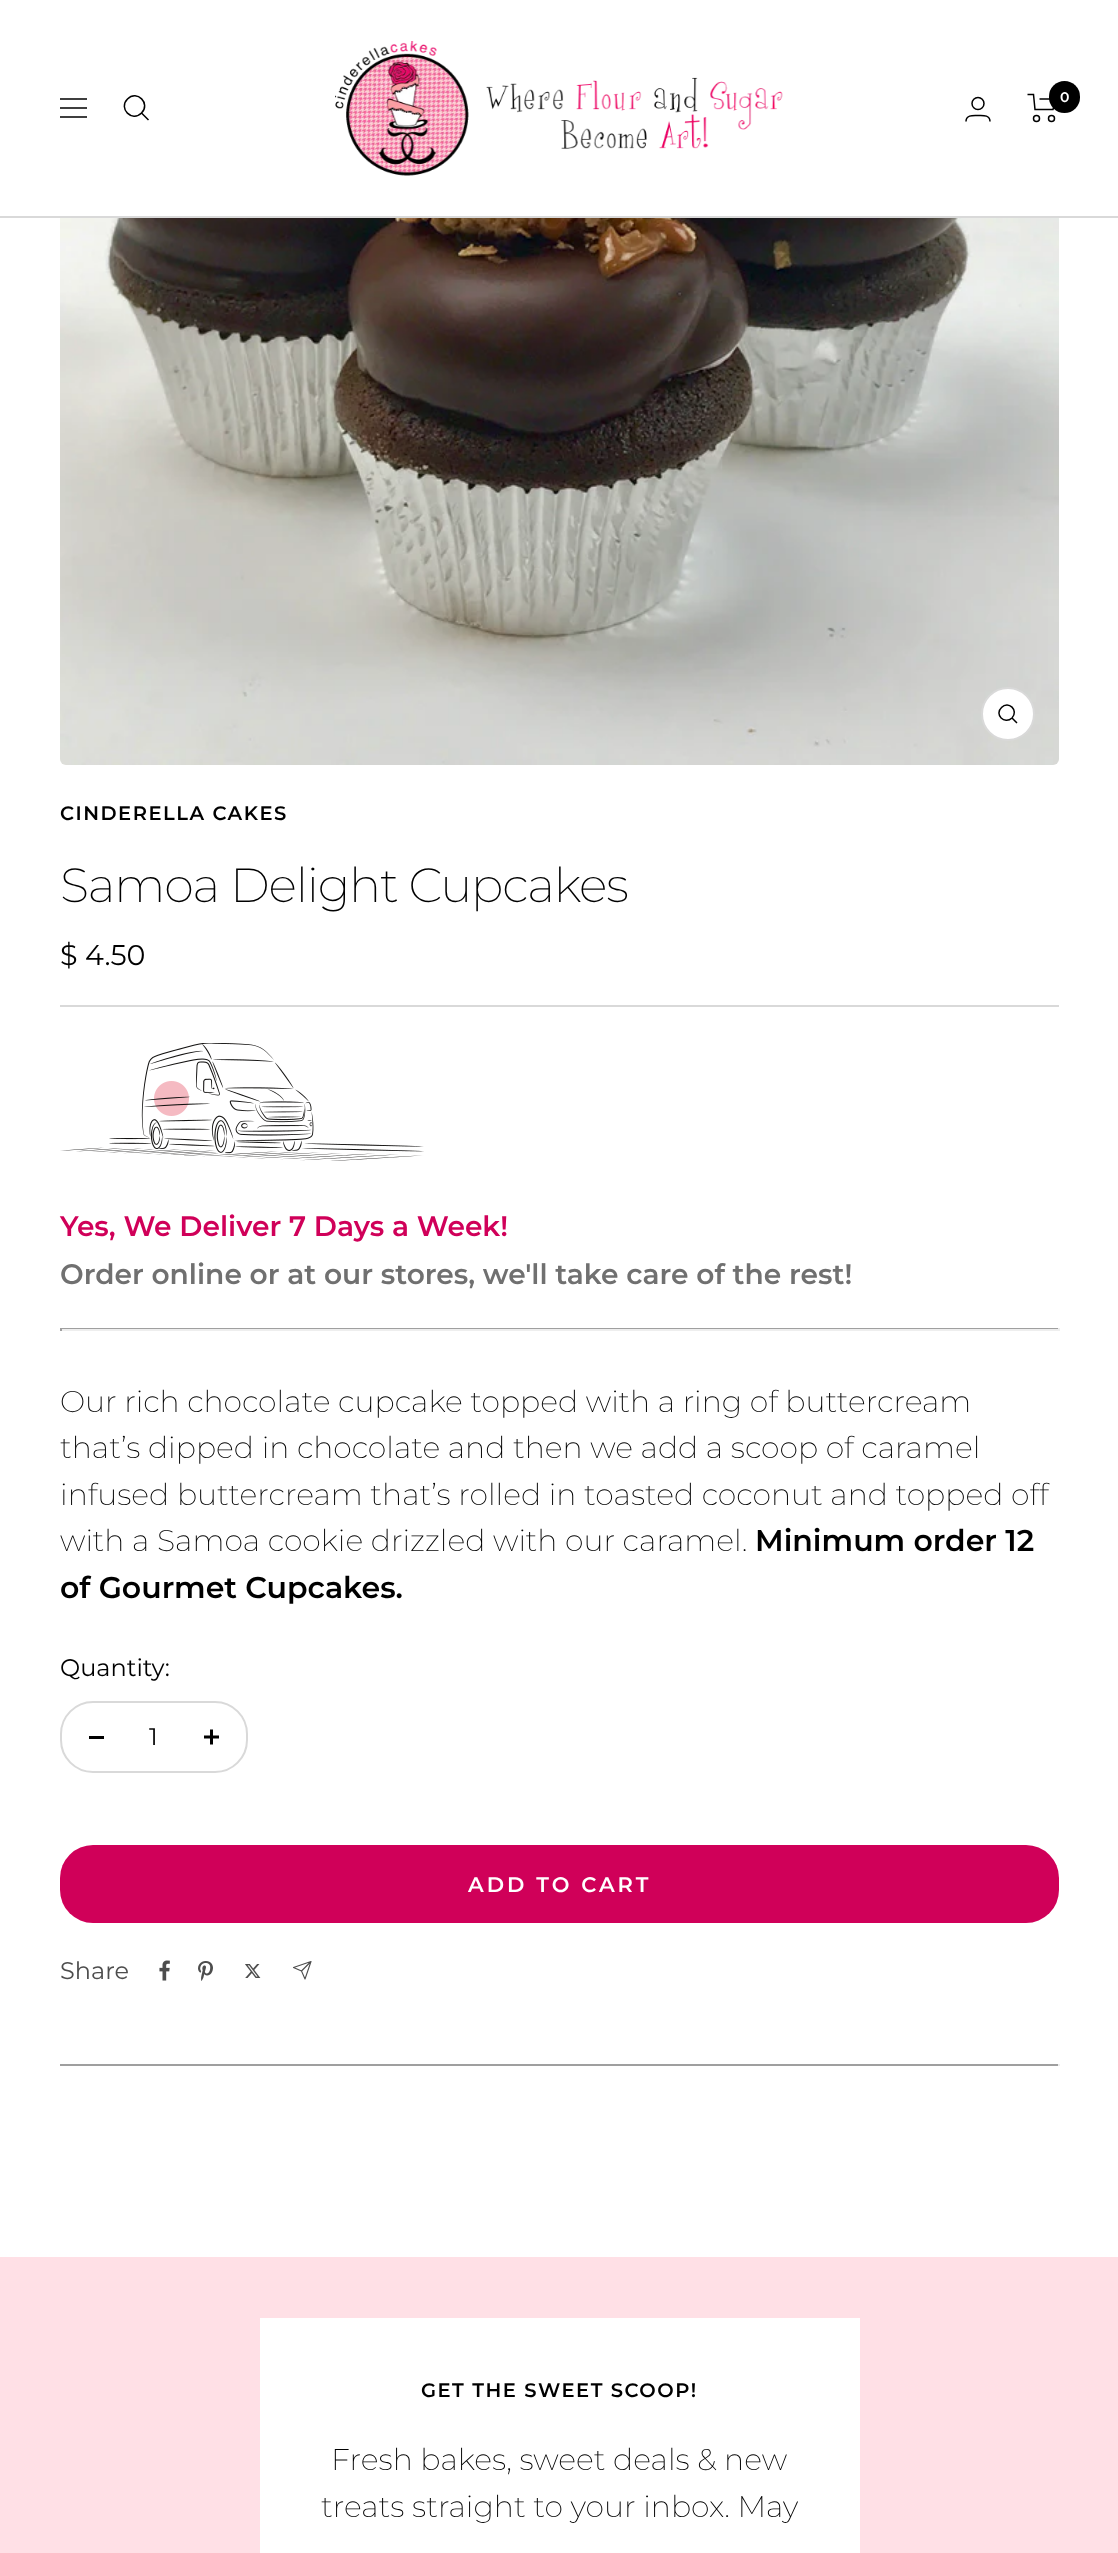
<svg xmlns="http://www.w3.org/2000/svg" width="1118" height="2553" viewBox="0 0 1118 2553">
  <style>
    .t1 { font: 600 14px Montserrat; fill: #fff; }
    .t2 { font: 600 19.5px Montserrat; letter-spacing: 1.5px; fill: #000; }
    .t3 { font: 200 48px Montserrat; letter-spacing: -1.2px; fill: #000; }
    .t4 { font: 28.5px Montserrat; fill: #000; }
    .t5 { font: 600 28.1px Montserrat; fill: #d00059; }
    .t6 { font: 600 28.1px Montserrat; fill: #707070; }
    .t7 { font: 200 30px Montserrat; fill: #000; }
    .t8 { font: 600 30px Montserrat; fill: #000; }
    .t9 { font: 24px Montserrat; fill: #000; }
    .t10 { font: 600 21px Montserrat; letter-spacing: 3px; fill: #fff; }
    .t11 { font: 24px Montserrat; fill: #4d4d4d; }
  </style>
  <rect width="100%" height="100%" fill="#fff"/>
  <rect x="0" y="216" width="1118" height="2" fill="#d9d9d9"/>
  <path d="M60 99H87M60 117H87ZM60 108H87Z" fill="none" stroke="#000" stroke-width="1.5"/>
  <path d="M141.5 113C151 103.5 137 89.5 127.5 99C118 108.5 132 122.5 141.5 113ZM141.5 113L148.5 120" fill="none" stroke="#000" stroke-width="1.5"/>
  <image x="335" y="41" width="448" height="135" href="images/1.png"/>
  <circle cx="978" cy="103.5" r="6" fill="none" stroke="#000" stroke-width="1.5"/>
  <path d="M966 121.5C966 114.5 973.5 115.5 978 115.5C982.5 115.5 990 114.5 990 121.5" fill="none" stroke="#000" stroke-width="1.5"/>
  <path d="M1027.5 94.5H1033.5L1035 109.5H1053L1056 99H1039.5" fill="none" stroke="#000" stroke-width="1.5"/>
  <circle cx="1036.5" cy="118.5" r="3" fill="none" stroke="#000" stroke-width="1.5"/>
  <circle cx="1051.5" cy="118.5" r="3" fill="none" stroke="#000" stroke-width="1.5"/>
  <rect x="1049" y="81" width="31" height="32" rx="15.5" fill="#000"/>
  <text x="1060" y="102" class="t1">0</text>
  <image x="60" y="218" width="999" height="547" href="images/2.png"/>
  <circle cx="1008" cy="714" r="26" fill="#fff" stroke="#d9d9d9" stroke-width="2"/>
  <path d="M1012 718C1019 710.5 1008.5 700 1001.5 707.5C994 714.5 1004.5 725 1012 718ZM1012 718L1017 723" fill="none" stroke="#000" stroke-width="1.5"/>
  <rect x="60" y="1005" width="999" height="2" fill="#d9d9d9"/>
  <text x="60" y="820" class="t2">CINDERELLA CAKES</text>
  <text x="60" y="902" class="t3">Samoa Delight Cupcakes</text>
  <text x="60" y="965" class="t4">$ 4.50</text>
  <image x="60" y="1043" width="364" height="118" href="images/3.png"/>
  <text x="60" y="1236" class="t5">Yes, We Deliver 7 Days a Week!</text>
  <text x="60" y="1284" class="t6">Order online or at our stores, we'll take care of the rest!</text>
  <rect x="60" y="1328" width="999" height="1" fill="#9f9f9f"/>
  <rect x="1058" y="1328" width="2" height="3" fill="#eee"/>
  <rect x="60" y="1329" width="999" height="2" fill="#eee"/>
  <rect x="60" y="1328" width="2" height="3" fill="#9f9f9f"/>
  <text x="60" y="1412" class="t7">Our rich chocolate cupcake topped with a ring of buttercream</text>
  <text x="60" y="1458" class="t7">that’s dipped in chocolate and then we add a scoop of caramel</text>
  <text x="60" y="1505" class="t7">infused buttercream that’s rolled in toasted coconut and topped off</text>
  <text x="60" y="1551" class="t7">with a Samoa cookie drizzled with our caramel.</text>
  <text x="755" y="1551" class="t8">Minimum order 12</text>
  <text x="60" y="1598" class="t8">of Gourmet Cupcakes.</text>
  <text x="60" y="1676" class="t9">Quantity:</text>
  <rect x="61" y="1702" width="186" height="70" rx="32" fill="none" stroke="#d9d9d9" stroke-width="2"/>
  <rect x="89" y="1736" width="15" height="3" fill="#000"/>
  <text x="149" y="1745" class="t9">1</text>
  <image x="204" y="1729" width="15" height="16" href="images/4.png"/>
  <rect x="60" y="1845" width="999" height="78" rx="33" fill="#d00059"/>
  <text x="468" y="1892" class="t10">ADD TO CART</text>
  <text x="60" y="1979" class="t11">Share</text>
  <image x="159" y="1960" width="11" height="21" href="images/5.png"/>
  <image x="198" y="1961" width="15" height="20" href="images/6.png"/>
  <image x="245" y="1964" width="16" height="14" href="images/7.png"/>
  <path d="M311 1961.5L305 1979L301.5 1971M311 1961.5L293.5 1967.5L301.5 1971M311 1961.5L301.5 1971" fill="none" stroke="#4d4d4d" stroke-width="1.1" stroke-linecap="round" stroke-linejoin="round"/>
  <rect x="60" y="2064" width="999" height="2" fill="#9f9f9f"/>
  <rect x="1058" y="2064" width="2" height="2" fill="#eee"/>
  <rect x="0" y="2257" width="1118" height="296" fill="#ffe0e6"/>
  <rect x="260" y="2318" width="600" height="235" fill="#fff"/>
  <text x="421" y="2397" class="t2">GET THE SWEET SCOOP!</text>
  <text x="331" y="2470" class="t7">Fresh bakes, sweet deals &amp; new</text>
  <text x="321" y="2517" class="t7">treats straight to your inbox. May</text>
</svg>
